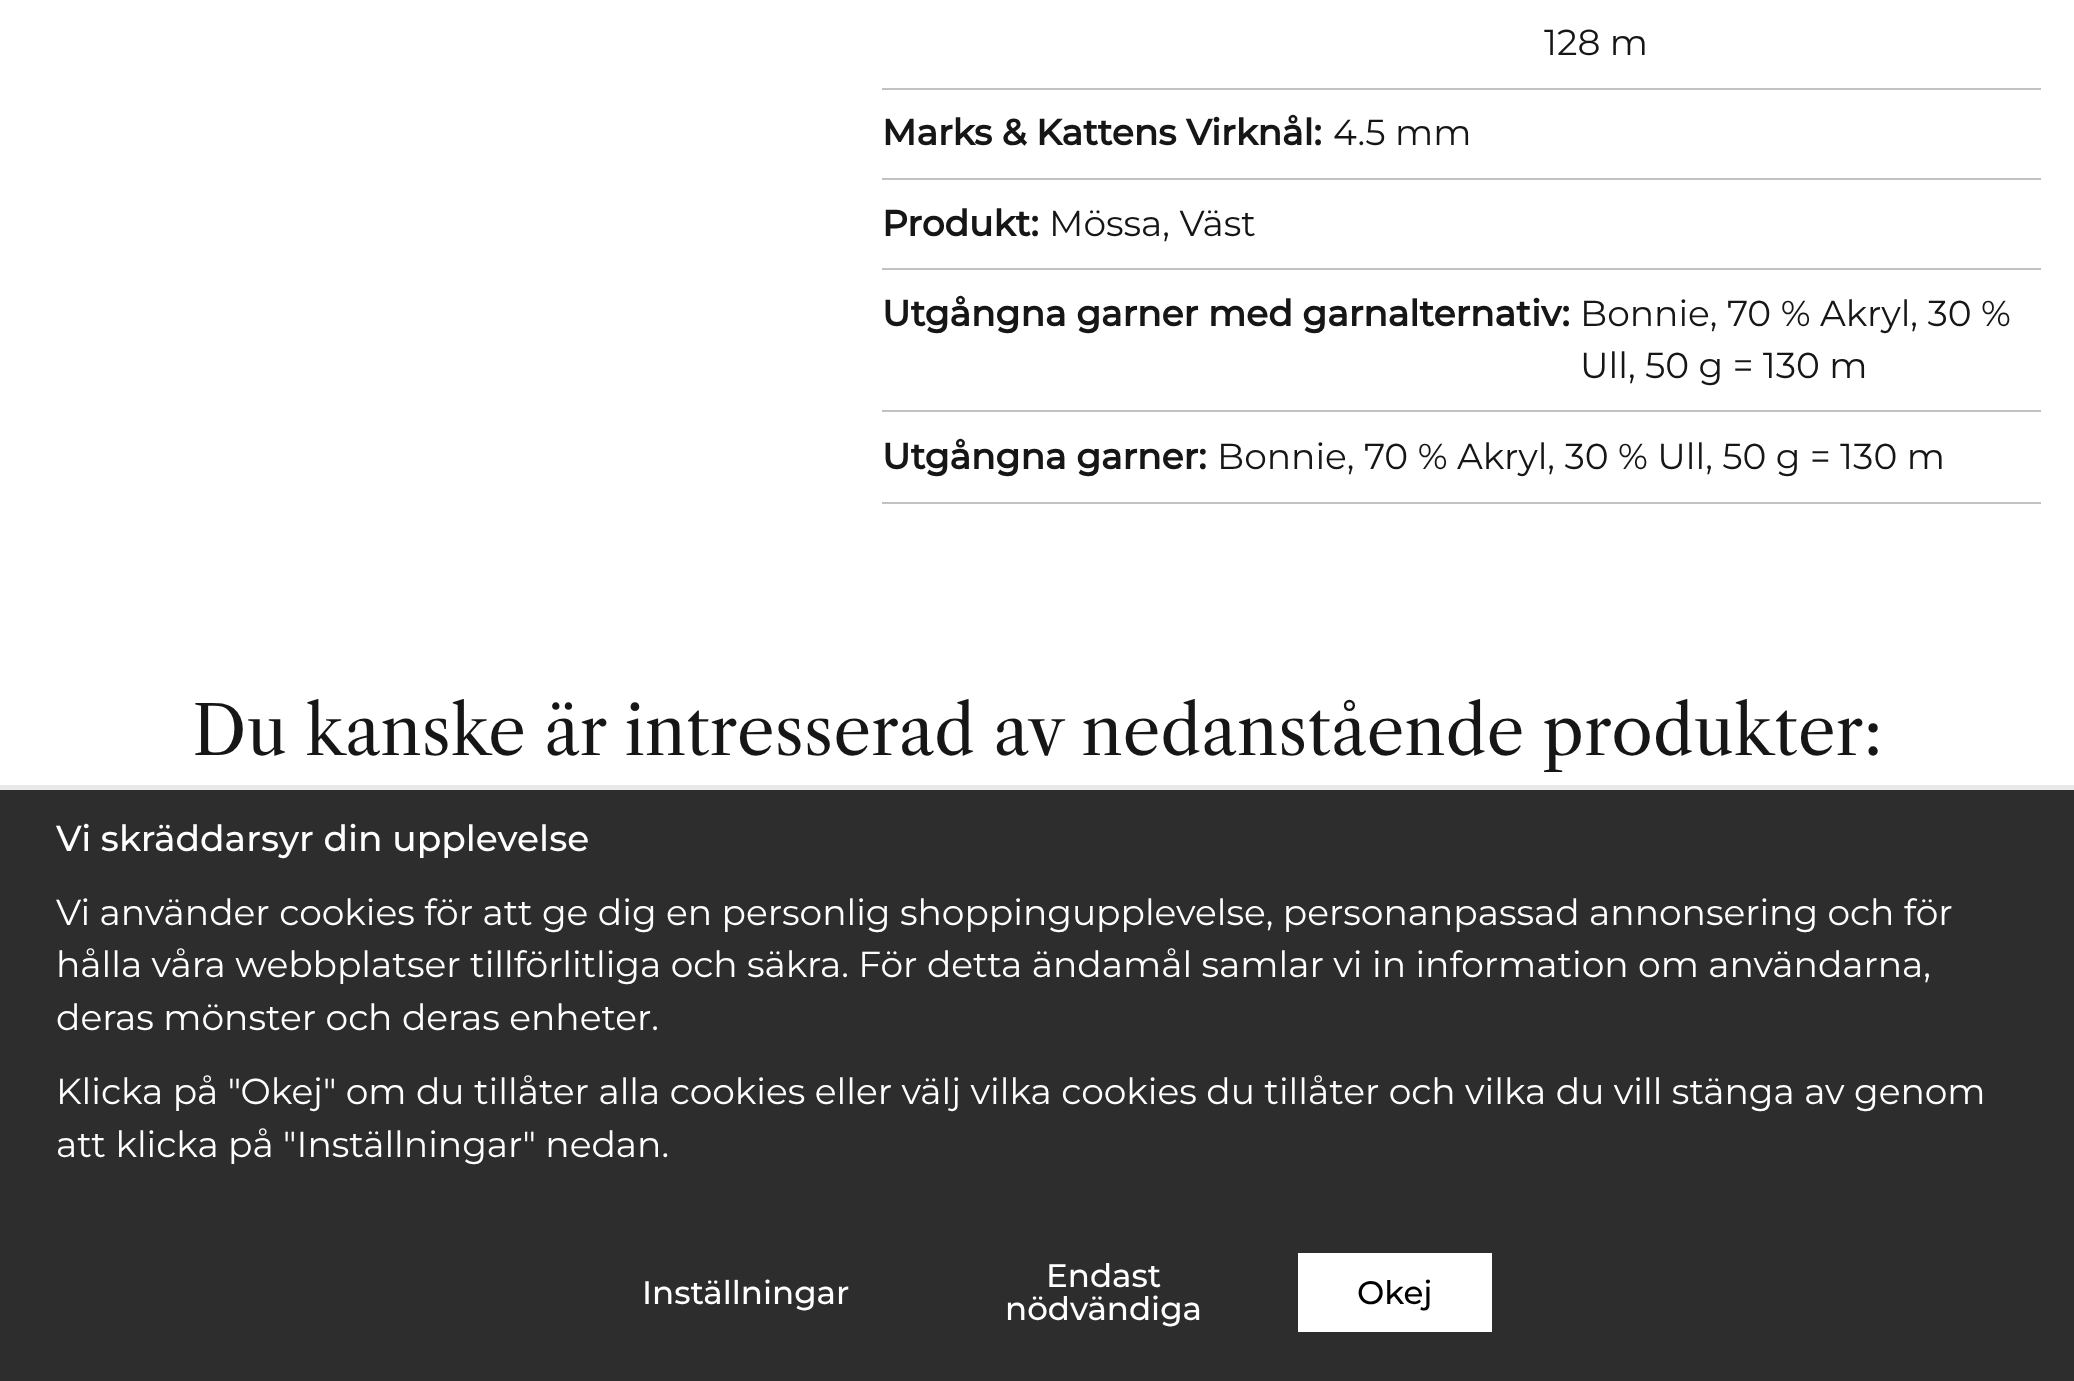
<svg xmlns="http://www.w3.org/2000/svg" width="2074" height="1381" viewBox="0 0 2074 1381">
  <style>
    .t1 { font: 36px Montserrat; fill: #161616; }
    .t2 { font: bold 36px Montserrat; fill: #161616; }
    .t3 { font: 67.5px Libre Caslon Text; fill: #161616; }
    .t4 { font: 500 36px Montserrat; fill: #fff; }
    .t5 { font: 36px Montserrat; fill: #fff; }
    .t6 { font: 500 32.5px Montserrat; fill: #fff; }
    .t7 { font: 500 32.5px Montserrat; fill: #000; }
  </style>
  <rect width="100%" height="100%" fill="#fff"/>
  <rect x="882" y="88" width="1159" height="2" fill="#c2c2c2"/>
  <text x="1544" y="55" class="t1">128 m</text>
  <rect x="882" y="178" width="1159" height="2" fill="#c2c2c2"/>
  <text x="882" y="145" class="t2">Marks &amp; Kattens Virknål:</text>
  <text x="1333" y="145" class="t1">4.5 mm</text>
  <rect x="882" y="268" width="1159" height="2" fill="#c2c2c2"/>
  <text x="882" y="236" class="t2">Produkt:</text>
  <text x="1049" y="236" class="t1">Mössa, Väst</text>
  <rect x="882" y="410" width="1159" height="2" fill="#c2c2c2"/>
  <text x="882" y="326" class="t2">Utgångna garner med garnalternativ:</text>
  <text x="1580" y="326" class="t1">Bonnie, 70 % Akryl, 30 %</text>
  <text x="1580" y="378" class="t1">Ull, 50 g = 130 m</text>
  <rect x="882" y="502" width="1159" height="2" fill="#c2c2c2"/>
  <text x="882" y="469" class="t2">Utgångna garner:</text>
  <text x="1217" y="469" class="t1">Bonnie, 70 % Akryl, 30 % Ull, 50 g = 130 m</text>
  <text x="192" y="755" class="t3">Du kanske är intresserad av nedanstående produkter:</text>
  <rect x="0" y="790" width="2074" height="591" fill="#2d2d2d"/>
  <rect x="0" y="785" width="2074" height="5" fill="#e9e9e9"/>
  <text x="56" y="851" class="t4">Vi skräddarsyr din upplevelse</text>
  <text x="56" y="925" class="t5">Vi använder cookies för att ge dig en personlig shoppingupplevelse, personanpassad annonsering och för</text>
  <text x="56" y="977" class="t5">hålla våra webbplatser tillförlitliga och säkra. För detta ändamål samlar vi in information om användarna,</text>
  <text x="56" y="1030" class="t5">deras mönster och deras enheter.</text>
  <text x="56" y="1104" class="t5">Klicka på "Okej" om du tillåter alla cookies eller välj vilka cookies du tillåter och vilka du vill stänga av genom</text>
  <text x="56" y="1157" class="t5">att klicka på "Inställningar" nedan.</text>
  <text x="642" y="1304" class="t6">Inställningar</text>
  <text x="1046" y="1287" class="t6">Endast</text>
  <text x="1005" y="1320" class="t6">nödvändiga</text>
  <rect x="1298" y="1253" width="194" height="79" fill="#fff"/>
  <text x="1357" y="1304" class="t7">Okej</text>
</svg>
